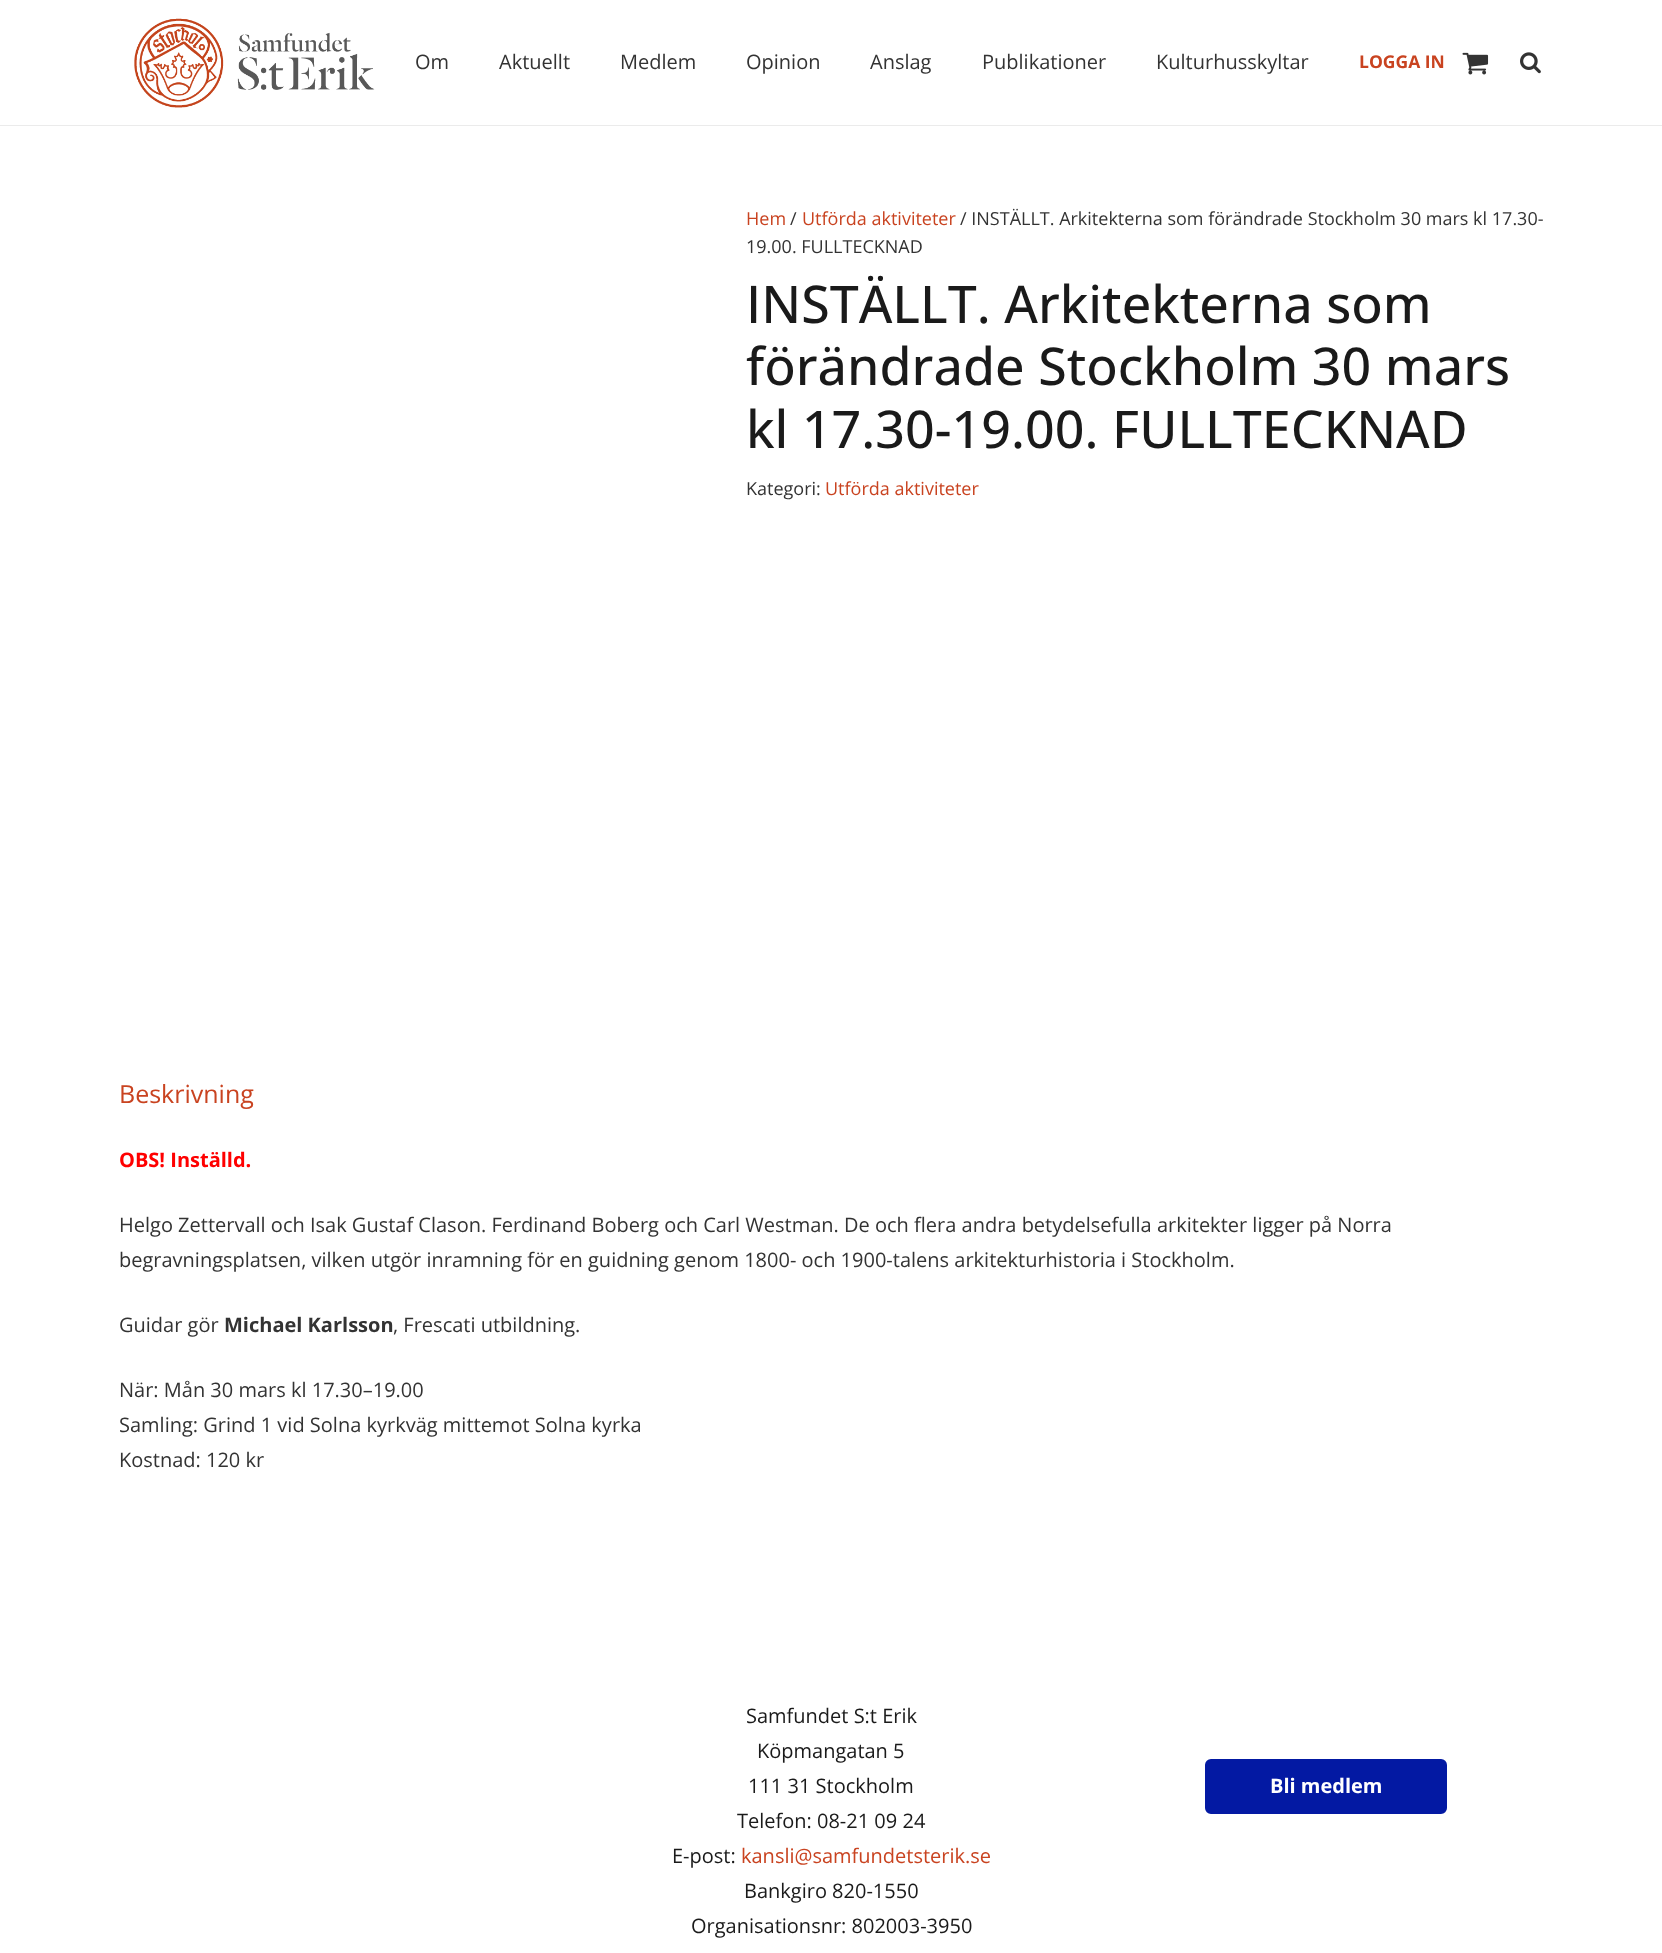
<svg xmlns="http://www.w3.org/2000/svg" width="1662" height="1953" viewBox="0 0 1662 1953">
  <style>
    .t1 { font: 20px Open Sans; fill: #333; }
    .t2 { font: bold 17.5px Open Sans; fill: #c94320; }
    .t3 { font: 18px Open Sans; fill: #c94320; }
    .t4 { font: 18px Open Sans; fill: #333; }
    .t5 { font: 500 52px Open Sans; fill: #1a1a1a; }
    .t6 { font: 25px Open Sans; fill: #c94320; }
    .t7 { font: bold 20px Open Sans; fill: #f00; }
    .t8 { font: bold 20px Open Sans; fill: #333; }
    .t9 { font: 20px Open Sans; fill: #1a1a1a; }
    .t10 { font: 20px Open Sans; fill: #c94320; }
    .t11 { font: bold 20px Open Sans; fill: #fff; }
  </style>
  <rect width="100%" height="100%" fill="#fff"/>
  <path d="M0 125V126H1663V1H1662V125Z" fill="#ebebeb"/>
  <image x="134" y="18" width="241" height="90" href="images/1.png"/>
  <text x="415" y="69" class="t1">Om</text>
  <text x="499" y="69" class="t1">Aktuellt</text>
  <text x="620" y="69" class="t1">Medlem</text>
  <text x="746" y="69" class="t1">Opinion</text>
  <text x="870" y="69" class="t1">Anslag</text>
  <text x="982" y="69" class="t1">Publikationer</text>
  <text x="1156" y="69" class="t1">Kulturhusskyltar</text>
  <text x="1359" y="68" class="t2">LOGGA IN</text>
  <image x="1462" y="52" width="27" height="23" href="images/2.png"/>
  <image x="1520" y="52" width="21" height="22" href="images/3.png"/>
  <text x="746" y="225" class="t3">Hem</text>
  <text x="790" y="225" class="t4">/</text>
  <text x="802" y="225" class="t3">Utförda aktiviteter</text>
  <text x="960" y="225" class="t4">/ INSTÄLLT. Arkitekterna som förändrade Stockholm 30 mars kl 17.30-</text>
  <text x="746" y="253" class="t4">19.00. FULLTECKNAD</text>
  <text x="746" y="323" class="t5">INSTÄLLT. Arkitekterna som</text>
  <text x="746" y="385" class="t5">förändrade Stockholm 30 mars</text>
  <text x="746" y="448" class="t5">kl 17.30-19.00. FULLTECKNAD</text>
  <text x="746" y="495" class="t4">Kategori:</text>
  <text x="825" y="495" class="t3">Utförda aktiviteter</text>
  <text x="119" y="1103" class="t6">Beskrivning</text>
  <text x="119" y="1167" class="t7">OBS! Inställd.</text>
  <text x="119" y="1232" class="t1">Helgo Zettervall och Isak Gustaf Clason. Ferdinand Boberg och Carl Westman. De och flera andra betydelsefulla arkitekter ligger på Norra</text>
  <text x="119" y="1267" class="t1">begravningsplatsen, vilken utgör inramning för en guidning genom 1800- och 1900-talens arkitekturhistoria i Stockholm.</text>
  <text x="119" y="1332" class="t1">Guidar gör</text>
  <text x="224" y="1332" class="t8">Michael Karlsson</text>
  <text x="393" y="1332" class="t1">, Frescati utbildning.</text>
  <text x="119" y="1397" class="t1">När: Mån 30 mars kl 17.30–19.00</text>
  <text x="119" y="1432" class="t1">Samling: Grind 1 vid Solna kyrkväg mittemot Solna kyrka</text>
  <text x="119" y="1467" class="t1">Kostnad: 120 kr</text>
  <text x="746" y="1723" class="t9">Samfundet S:t Erik</text>
  <text x="757" y="1758" class="t9">Köpmangatan 5</text>
  <text x="748" y="1793" class="t9">111 31 Stockholm</text>
  <text x="737" y="1828" class="t9">Telefon: 08-21 09 24</text>
  <text x="672" y="1863" class="t9">E-post:</text>
  <text x="741" y="1863" class="t10">kansli@samfundetsterik.se</text>
  <text x="744" y="1898" class="t9">Bankgiro 820-1550</text>
  <text x="691" y="1933" class="t9">Organisationsnr: 802003-3950</text>
  <rect x="1203" y="1757" width="246" height="59" rx="8" fill="#0319a3" stroke="#fff" stroke-width="4"/>
  <text x="1270" y="1793" class="t11">Bli medlem</text>
</svg>
